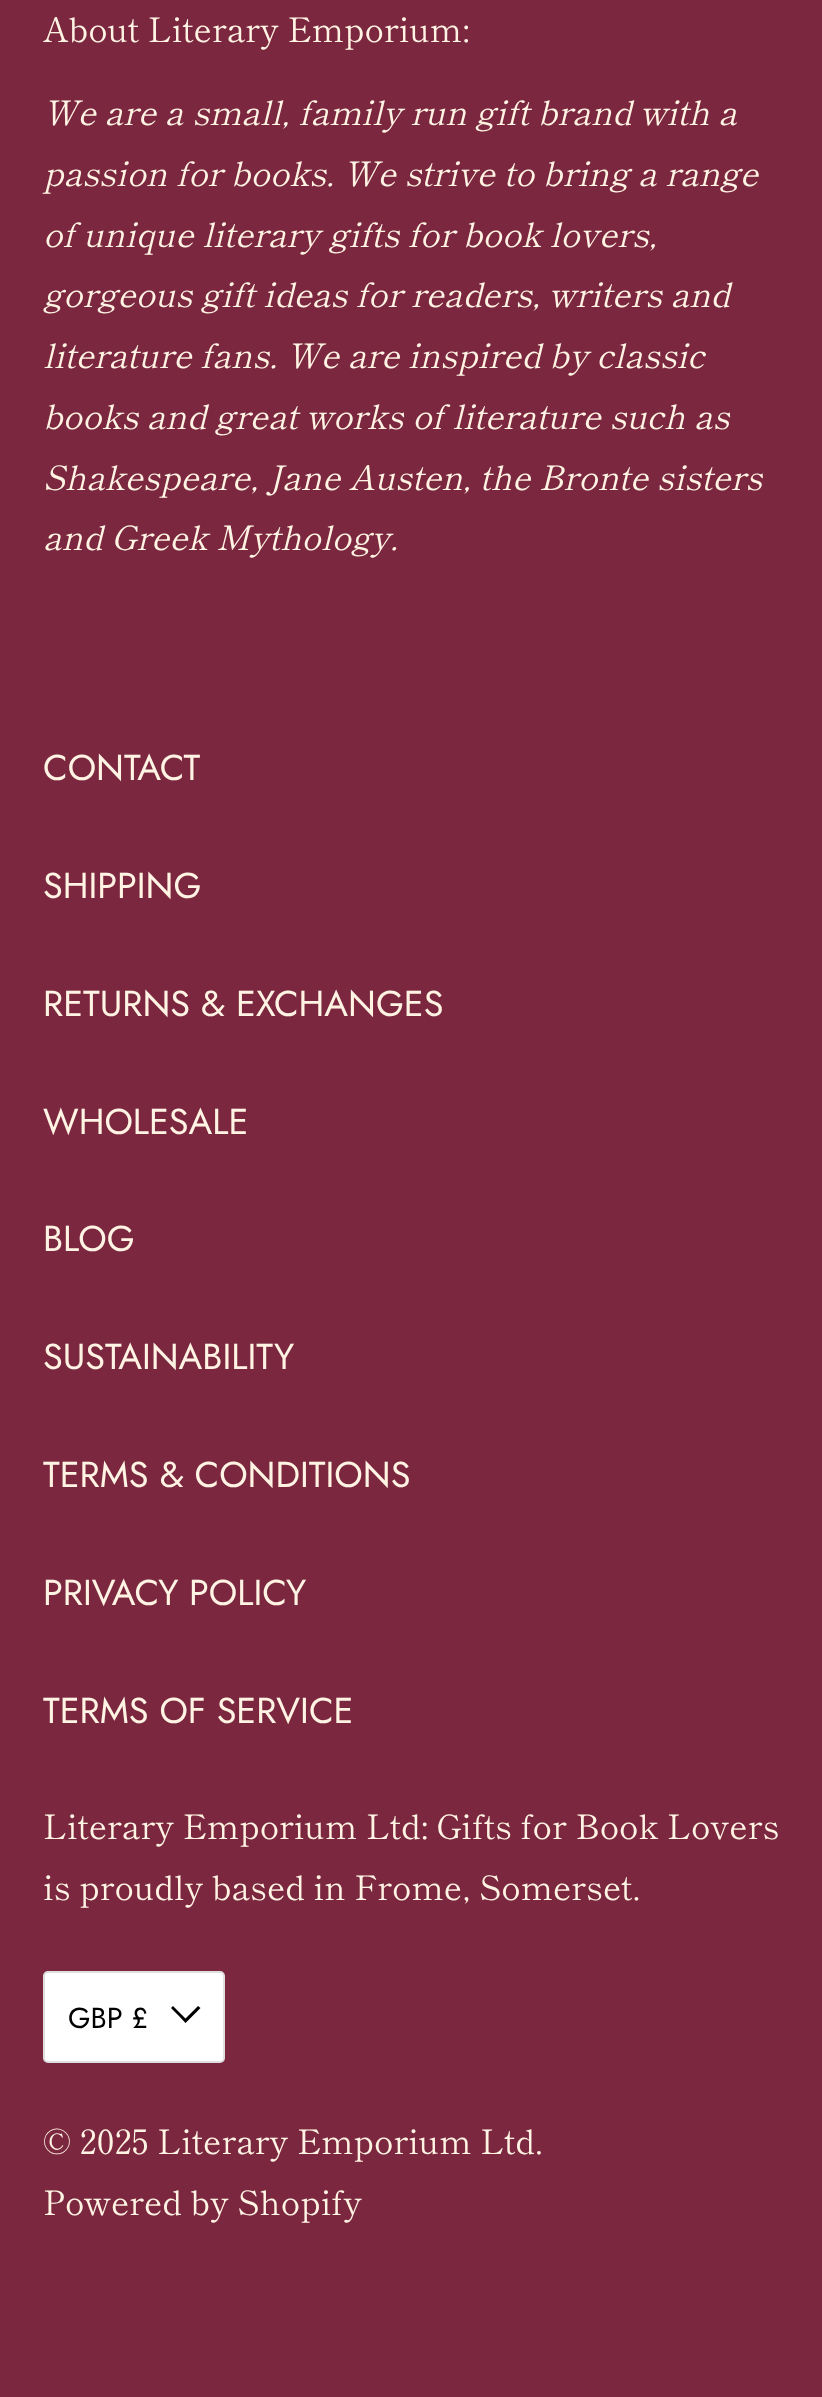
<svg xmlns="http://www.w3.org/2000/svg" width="822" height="2397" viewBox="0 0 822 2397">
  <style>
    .t1 { font: 33.75px Shippori Mincho; fill: #fff3e3; }
    .t2 { font: italic 33.75px Shippori Mincho; fill: #fff3e3; }
    .t3 { font: 36px Jost; fill: #fff3e3; }
    .t4 { font: 29px Jost; fill: #000; }
  </style>
  <rect width="100%" height="100%" fill="#7a273f"/>
  <text x="43" y="42" class="t1">About Literary Emporium:</text>
  <text x="43" y="125" class="t2">We are a small, family run gift brand with a</text>
  <text x="43" y="186" class="t2">passion for books. We strive to bring a range</text>
  <text x="43" y="247" class="t2">of unique literary gifts for book lovers,</text>
  <text x="43" y="307" class="t2">gorgeous gift ideas for readers, writers and</text>
  <text x="43" y="368" class="t2">literature fans. We are inspired by classic</text>
  <text x="43" y="429" class="t2">books and great works of literature such as</text>
  <text x="43" y="490" class="t2">Shakespeare, Jane Austen, the Bronte sisters</text>
  <text x="43" y="550" class="t2">and Greek Mythology.</text>
  <text x="43" y="780" class="t3">CONTACT</text>
  <text x="43" y="898" class="t3">SHIPPING</text>
  <text x="43" y="1016" class="t3">RETURNS &amp; EXCHANGES</text>
  <text x="43" y="1134" class="t3">WHOLESALE</text>
  <text x="43" y="1251" class="t3">BLOG</text>
  <text x="43" y="1369" class="t3">SUSTAINABILITY</text>
  <text x="43" y="1487" class="t3">TERMS &amp; CONDITIONS</text>
  <text x="43" y="1605" class="t3">PRIVACY POLICY</text>
  <text x="43" y="1723" class="t3">TERMS OF SERVICE</text>
  <text x="43" y="1839" class="t1">Literary Emporium Ltd: Gifts for Book Lovers</text>
  <text x="43" y="1900" class="t1">is proudly based in Frome, Somerset.</text>
  <rect x="44" y="1972" width="180" height="90" rx="4" fill="#fff" stroke="#dfdfdf" stroke-width="2"/>
  <text x="68" y="2028" class="t4">GBP £</text>
  <path d="M178.5 2015.5L171 2008L173 2006L185.5 2018.5L198 2006L200.5 2008L185.5 2023Z" fill="#000"/>
  <text x="43" y="2154" class="t1">© 2025 Literary Emporium Ltd.</text>
  <text x="43" y="2215" class="t1">Powered by Shopify</text>
</svg>
